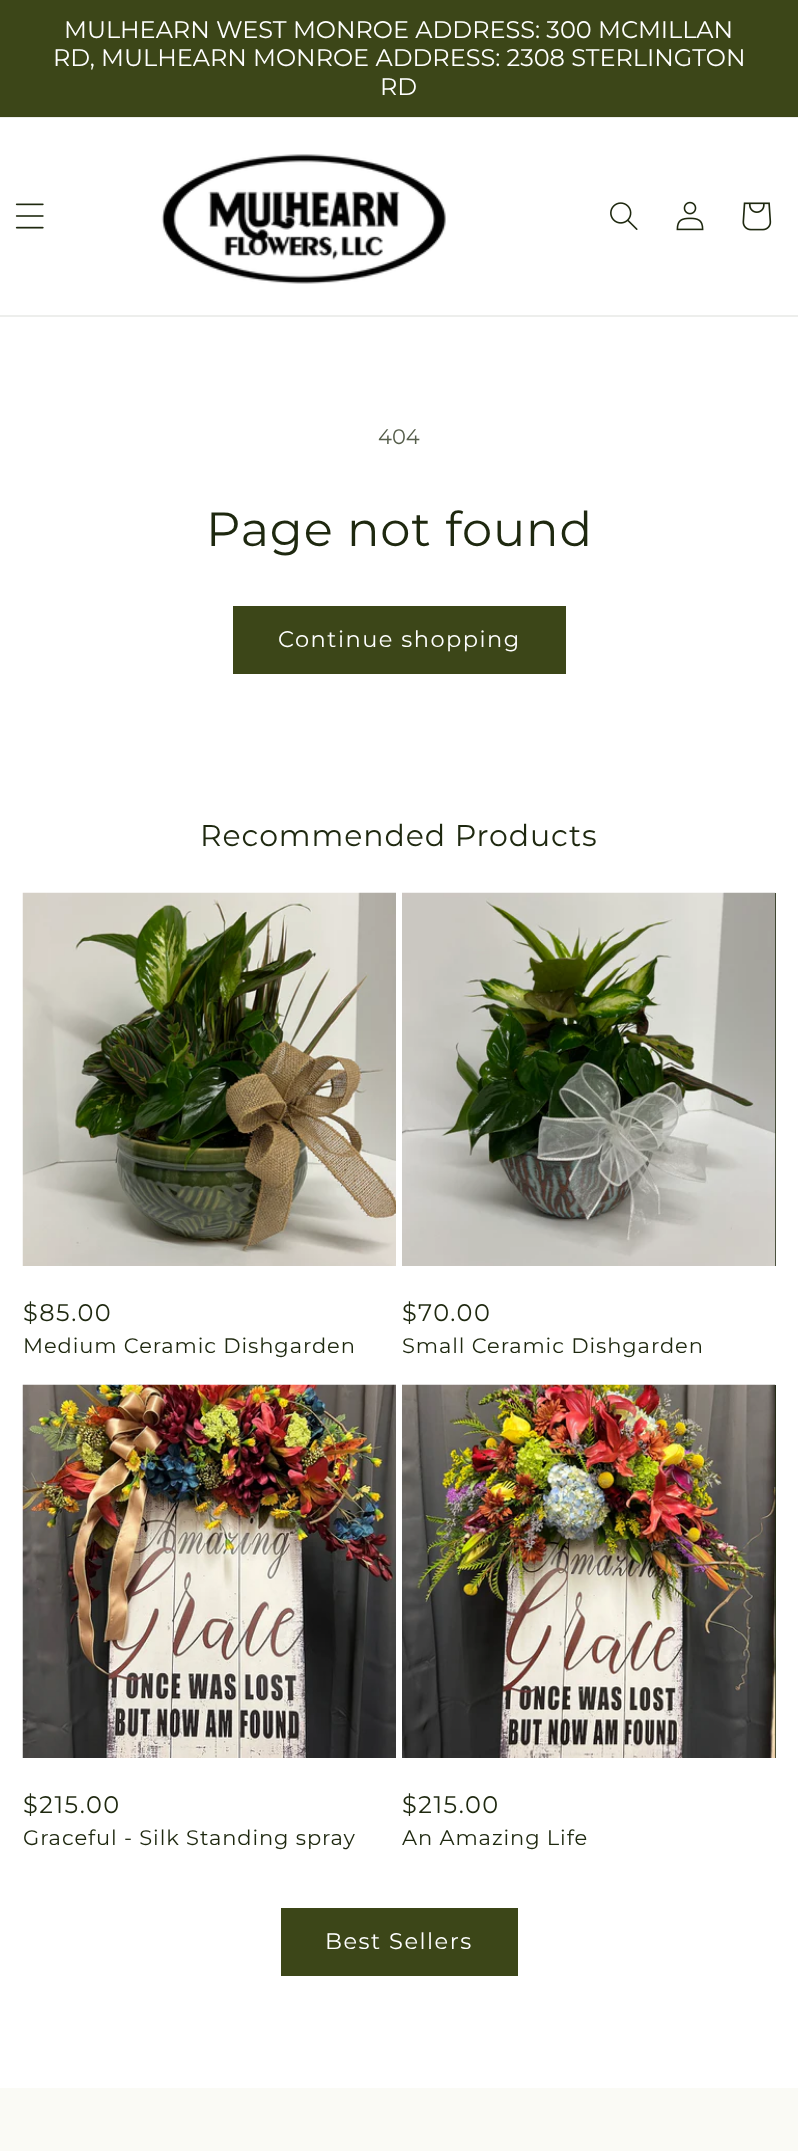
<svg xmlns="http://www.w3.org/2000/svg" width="798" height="2151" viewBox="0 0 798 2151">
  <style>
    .t1 { font: 24px Montserrat; fill: #fff; }
    .t2 { font: 21px Montserrat; fill: #565e4b; }
    .t3 { font: 48px Montserrat; letter-spacing: 0.9px; fill: #1e280f; }
    .t4 { font: 22.5px Montserrat; letter-spacing: 1.5px; fill: #fff; }
    .t5 { font: 30px Montserrat; letter-spacing: 0.9px; fill: #1e280f; }
    .t6 { font: 24px Montserrat; letter-spacing: 1.5px; fill: #1e280f; }
    .t7 { font: 21px Montserrat; letter-spacing: 0.9px; fill: #1e280f; }
  </style>
  <rect width="100%" height="100%" fill="#fff"/>
  <rect x="0" y="117" width="798" height="1" fill="#edeeec"/>
  <rect x="0" y="0" width="798" height="116" fill="#3c4618"/>
  <rect x="0" y="116" width="798" height="1" fill="#3a4417"/>
  <text x="64" y="38" class="t1">MULHEARN WEST MONROE ADDRESS: 300 MCMILLAN</text>
  <text x="53" y="66" class="t1">RD, MULHEARN MONROE ADDRESS: 2308 STERLINGTON</text>
  <text x="380" y="95" class="t1">RD</text>
  <rect x="0" y="315" width="798" height="2" fill="#edeeec"/>
  <image x="15" y="203" width="29" height="26" href="images/1.png"/>
  <image x="161" y="154" width="285" height="130" href="images/2.png"/>
  <image x="610" y="202" width="28" height="28" href="images/3.png"/>
  <image x="676" y="201" width="28" height="30" href="images/4.png"/>
  <image x="742" y="202" width="30" height="29" href="images/5.png"/>
  <text x="378" y="444" class="t2">404</text>
  <text x="206" y="546" class="t3">Page not found</text>
  <rect x="233" y="606" width="333" height="68" fill="#3c4618"/>
  <text x="278" y="647" class="t4">Continue shopping</text>
  <text x="200" y="846" class="t5">Recommended Products</text>
  <image x="22" y="892" width="374" height="374" href="images/6.png"/>
  <text x="23" y="1321" class="t6">$85.00</text>
  <text x="23" y="1353" class="t7">Medium Ceramic Dishgarden</text>
  <rect x="775" y="893" width="1" height="373" fill="#1e280f"/>
  <image x="402" y="892" width="374" height="374" href="images/7.png"/>
  <text x="402" y="1321" class="t6">$70.00</text>
  <text x="402" y="1353" class="t7">Small Ceramic Dishgarden</text>
  <image x="22" y="1384" width="374" height="374" href="images/8.png"/>
  <text x="23" y="1813" class="t6">$215.00</text>
  <text x="23" y="1845" class="t7">Graceful - Silk Standing spray</text>
  <rect x="775" y="1385" width="1" height="373" fill="#1e280f"/>
  <image x="402" y="1384" width="374" height="374" href="images/9.png"/>
  <text x="402" y="1813" class="t6">$215.00</text>
  <text x="402" y="1845" class="t7">An Amazing Life</text>
  <rect x="281" y="1908" width="237" height="68" fill="#3c4618"/>
  <text x="325" y="1949" class="t4">Best Sellers</text>
  <rect x="0" y="2088" width="798" height="63" fill="#fafaf5"/>
</svg>
